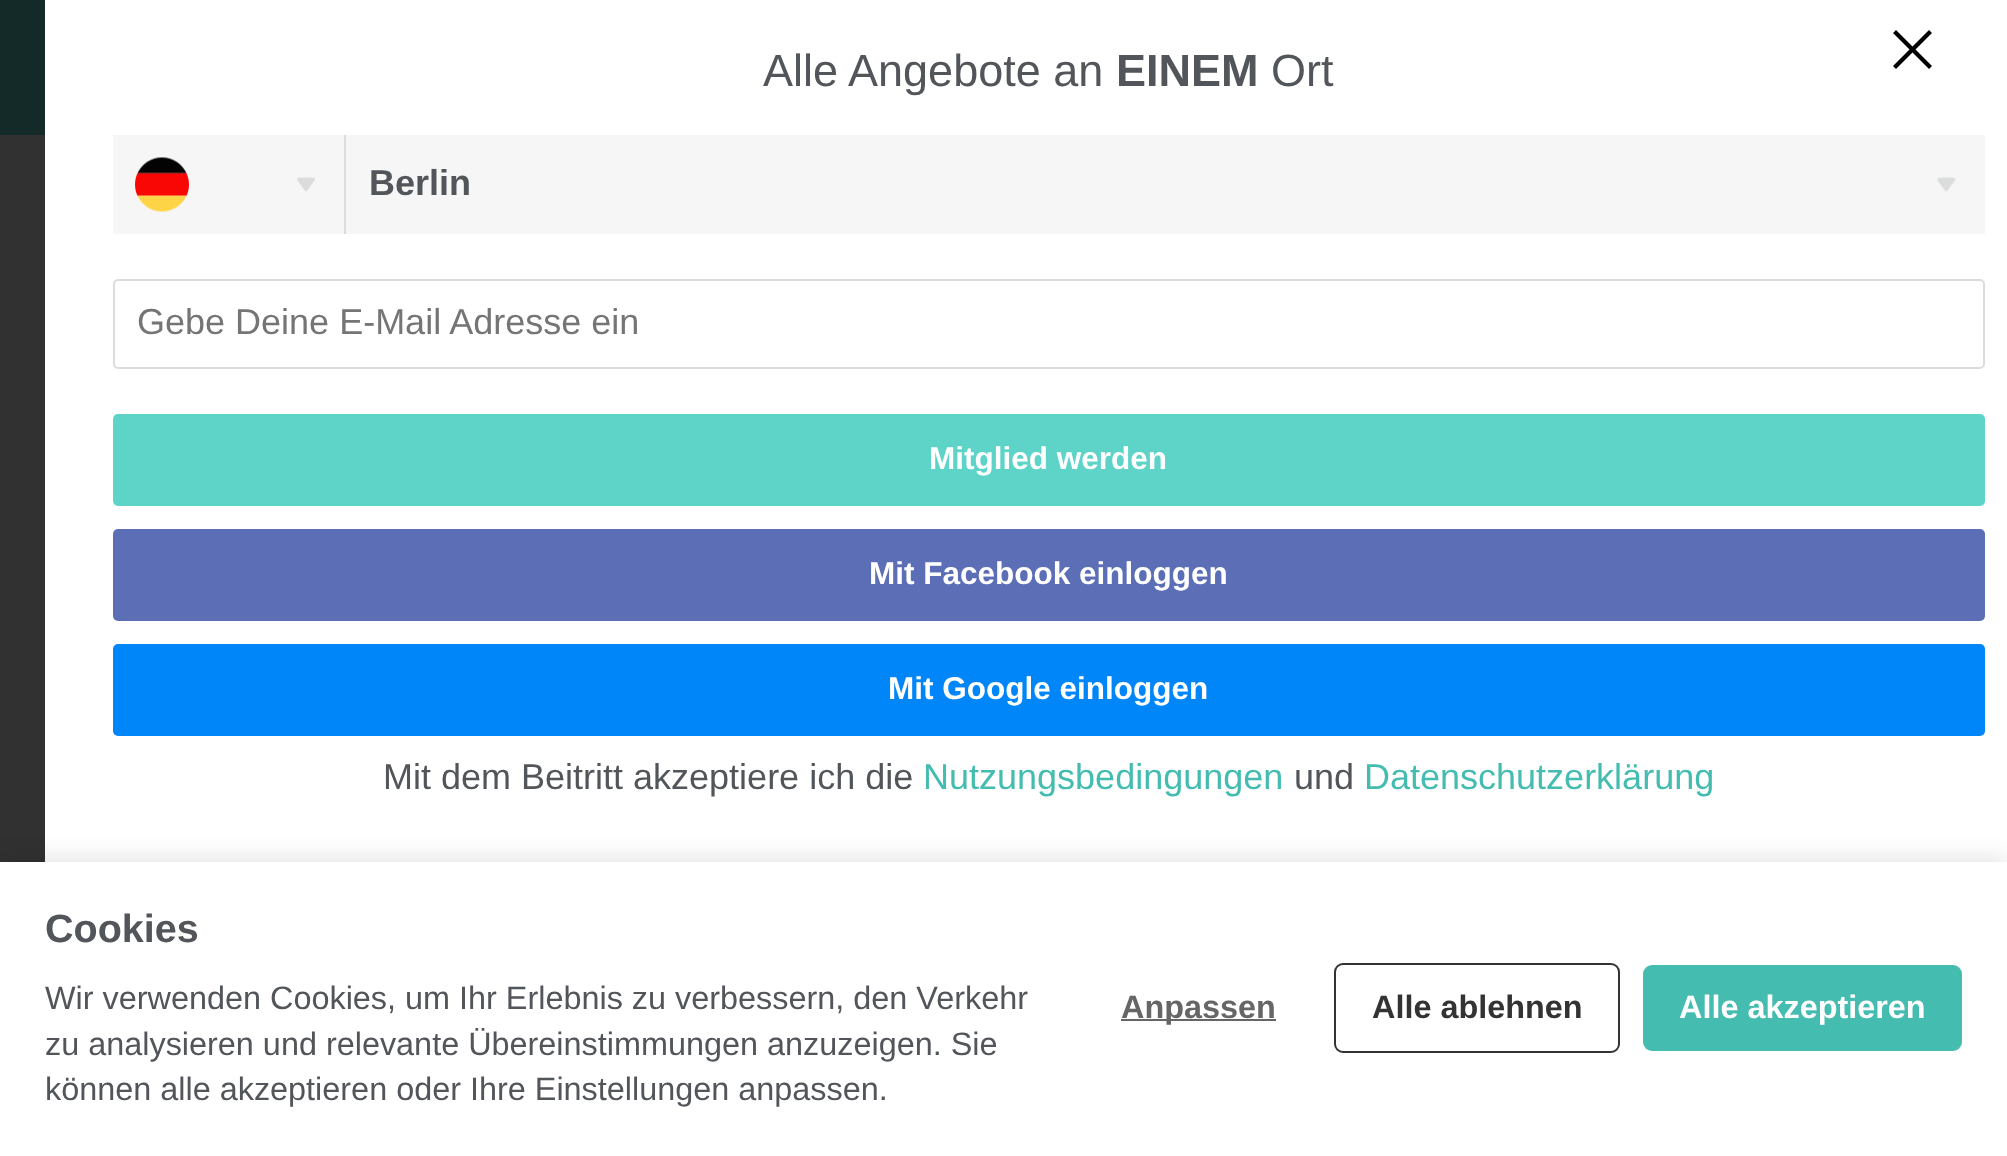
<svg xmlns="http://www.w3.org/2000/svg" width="2007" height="1156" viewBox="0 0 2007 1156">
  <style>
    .t1 { font: 45px Liberation Sans; fill: #52555a; }
    .t2 { font: bold 45px Liberation Sans; fill: #52555a; }
    .t3 { font: bold 36px Liberation Sans; fill: #52555a; }
    .t4 { font: 36px Liberation Sans; fill: #757575; }
    .t5 { font: bold 31.5px Liberation Sans; fill: #fff; }
    .t6 { font: 36px Liberation Sans; fill: #52555a; }
    .t7 { font: 36px Liberation Sans; fill: #45bcb0; }
    .t8 { font: bold 39.5px Liberation Sans; fill: #52555a; }
    .t9 { font: 32.4px Liberation Sans; fill: #52555a; }
    .t10 { font: bold 32.4px Liberation Sans; fill: #666; }
    .t11 { font: bold 32.4px Liberation Sans; fill: #333; }
    .t12 { font: bold 32.4px Liberation Sans; fill: #fff; }
  </style>
  <rect width="100%" height="100%" fill="#313131"/>
  <rect x="45" y="0" width="1962" height="862" fill="#fff"/>
  <text x="763" y="86" class="t1">Alle Angebote an</text>
  <text x="1116" y="86" class="t2">EINEM</text>
  <text x="1271" y="86" class="t1">Ort</text>
  <rect x="113" y="135" width="1872" height="99" fill="#f6f6f6"/>
  <rect x="344" y="135" width="2" height="99" fill="#dbdcdc"/>
  <image x="135" y="157" width="54" height="55" href="images/1.png"/>
  <image x="297" y="177" width="18" height="15" href="images/2.png"/>
  <text x="369" y="195" class="t3">Berlin</text>
  <image x="1937" y="177" width="19" height="15" href="images/3.png"/>
  <rect x="114" y="280" width="1870" height="88" rx="4" fill="none" stroke="#dbdcdc" stroke-width="2"/>
  <text x="137" y="334" class="t4">Gebe Deine E-Mail Adresse ein</text>
  <rect x="113" y="414" width="1872" height="92" rx="5" fill="#5ed4c9"/>
  <text x="929" y="469" class="t5">Mitglied werden</text>
  <rect x="113" y="529" width="1872" height="92" rx="5" fill="#5c6fb6"/>
  <text x="869" y="584" class="t5">Mit Facebook einloggen</text>
  <rect x="113" y="644" width="1872" height="92" rx="5" fill="#0086f9"/>
  <text x="888" y="699" class="t5">Mit Google einloggen</text>
  <text x="383" y="789" class="t6">Mit dem Beitritt akzeptiere ich die</text>
  <text x="923" y="789" class="t7">Nutzungsbedingungen</text>
  <text x="1294" y="789" class="t6">und</text>
  <text x="1364" y="789" class="t7">Datenschutzerklärung</text>
  <path d="M1932 33L1929 30L1912.5 46.5L1896 30L1893 33L1909.5 49.5L1893 66L1896 69L1912.5 52.5L1929 69L1932 66L1915.5 49.5Z" fill="#000" fill-rule="evenodd"/>
  <rect x="0" y="0" width="45" height="135" fill="#132a28"/>
  <rect x="0" y="857" width="2007" height="295" fill="#0000001a" filter="blur(11px)"/>
  <rect x="0" y="862" width="2007" height="294" fill="#fff"/>
  <text x="45" y="942" class="t8">Cookies</text>
  <text x="45" y="1009" class="t9">Wir verwenden Cookies, um Ihr Erlebnis zu verbessern, den Verkehr</text>
  <text x="45" y="1055" class="t9">zu analysieren und relevante Übereinstimmungen anzuzeigen. Sie</text>
  <text x="45" y="1100" class="t9">können alle akzeptieren oder Ihre Einstellungen anpassen.</text>
  <rect x="1121" y="1019" width="155" height="2" fill="#666"/>
  <text x="1121" y="1018" class="t10">Anpassen</text>
  <rect x="1335" y="964" width="284" height="88" rx="8" fill="none" stroke="#333" stroke-width="2"/>
  <text x="1372" y="1018" class="t11">Alle ablehnen</text>
  <rect x="1643" y="965" width="319" height="86" rx="9" fill="#45bcb0"/>
  <text x="1679" y="1018" class="t12">Alle akzeptieren</text>
</svg>
